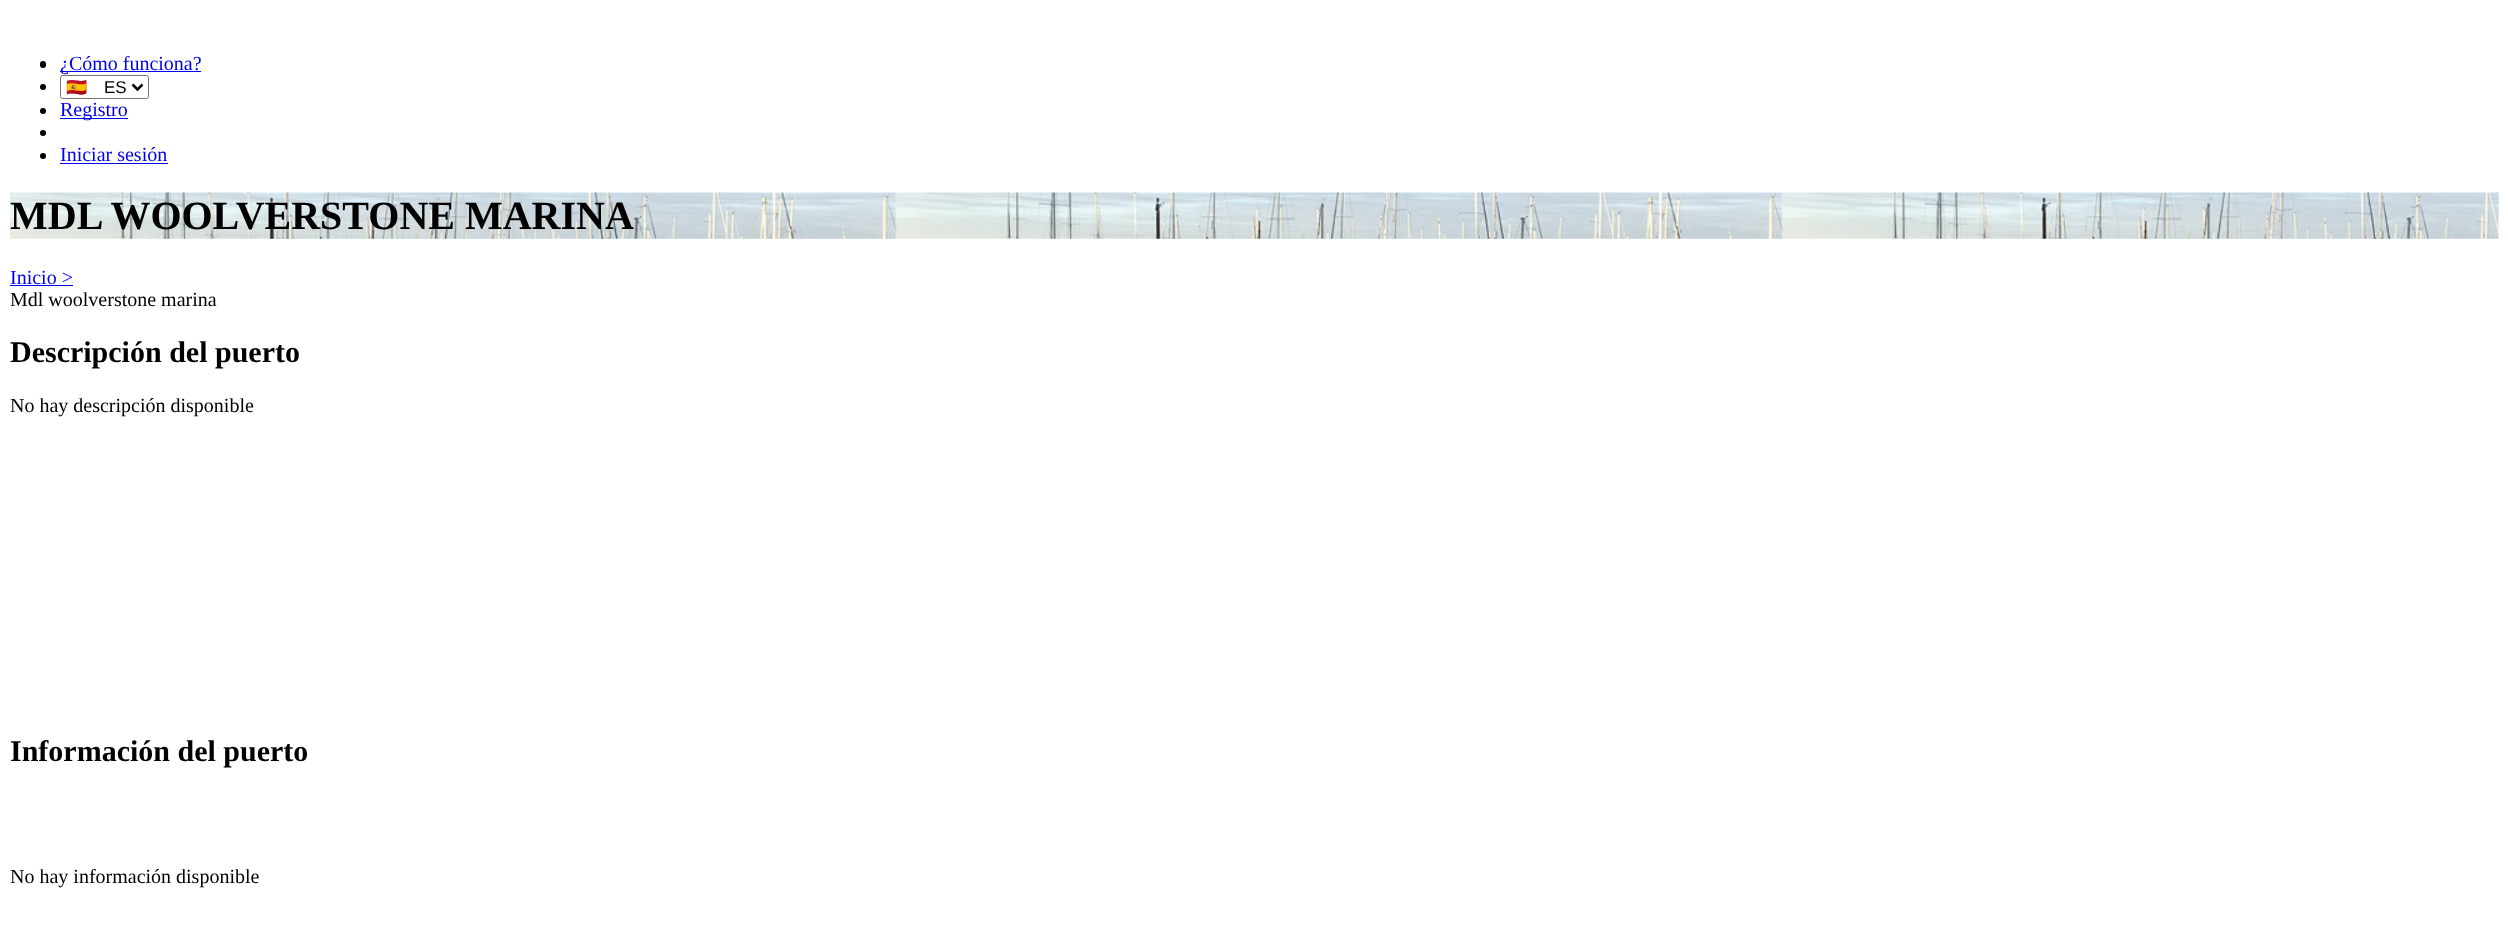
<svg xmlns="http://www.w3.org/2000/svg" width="2508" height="927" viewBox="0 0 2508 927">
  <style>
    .t1 { font: 20px Liberation Serif; fill: #00e; }
    .t2 { font: 17px Noto Color Emoji; fill: #000; }
    .t3 { font: 17px Liberation Sans; fill: #000; }
    .t4 { font: bold 40px Liberation Serif; fill: #000; }
    .t5 { font: 20px Liberation Serif; fill: #000; }
    .t6 { font: bold 30px Liberation Serif; fill: #000; }
  </style>
  <rect width="100%" height="100%" fill="#fff"/>
  <rect x="40" y="61" width="6" height="7" rx="3" fill="#000"/>
  <rect x="60" y="71" width="141" height="1" fill="#00e"/>
  <text x="60" y="70" class="t1">¿Cómo funciona?</text>
  <circle cx="43" cy="87" r="3" fill="#000"/>
  <rect x="60.5" y="75.5" width="88" height="23" rx="2" fill="none" stroke="#767676"/>
  <path d="M132.5 84.5L137.5 89.5L142.5 84.5" fill="none" stroke="#000" stroke-width="2.5"/>
  <text x="66" y="93" class="t2">🇪🇸</text>
  <text x="104" y="93" class="t3">ES</text>
  <circle cx="43" cy="111" r="3" fill="#000"/>
  <rect x="60" y="118" width="68" height="1" fill="#00e"/>
  <text x="60" y="116" class="t1">Registro</text>
  <circle cx="43" cy="133" r="3" fill="#000"/>
  <circle cx="43" cy="156" r="3" fill="#000"/>
  <text x="60" y="161" class="t1">Iniciar sesión</text>
  <rect x="60" y="163" width="108" height="1" fill="#00e"/>
  <image x="10" y="192" width="2489" height="47" href="images/1.png"/>
  <text x="10" y="229" class="t4">MDL WOOLVERSTONE MARINA</text>
  <text x="10" y="284" class="t1">Inicio &gt;</text>
  <rect x="10" y="285" width="63" height="1" fill="#00e"/>
  <text x="10" y="306" class="t5">Mdl woolverstone marina</text>
  <text x="10" y="362" class="t6">Descripción del puerto</text>
  <text x="10" y="412" class="t5">No hay descripción disponible</text>
  <text x="10" y="761" class="t6">Información del puerto</text>
  <text x="10" y="883" class="t5">No hay información disponible</text>
</svg>
